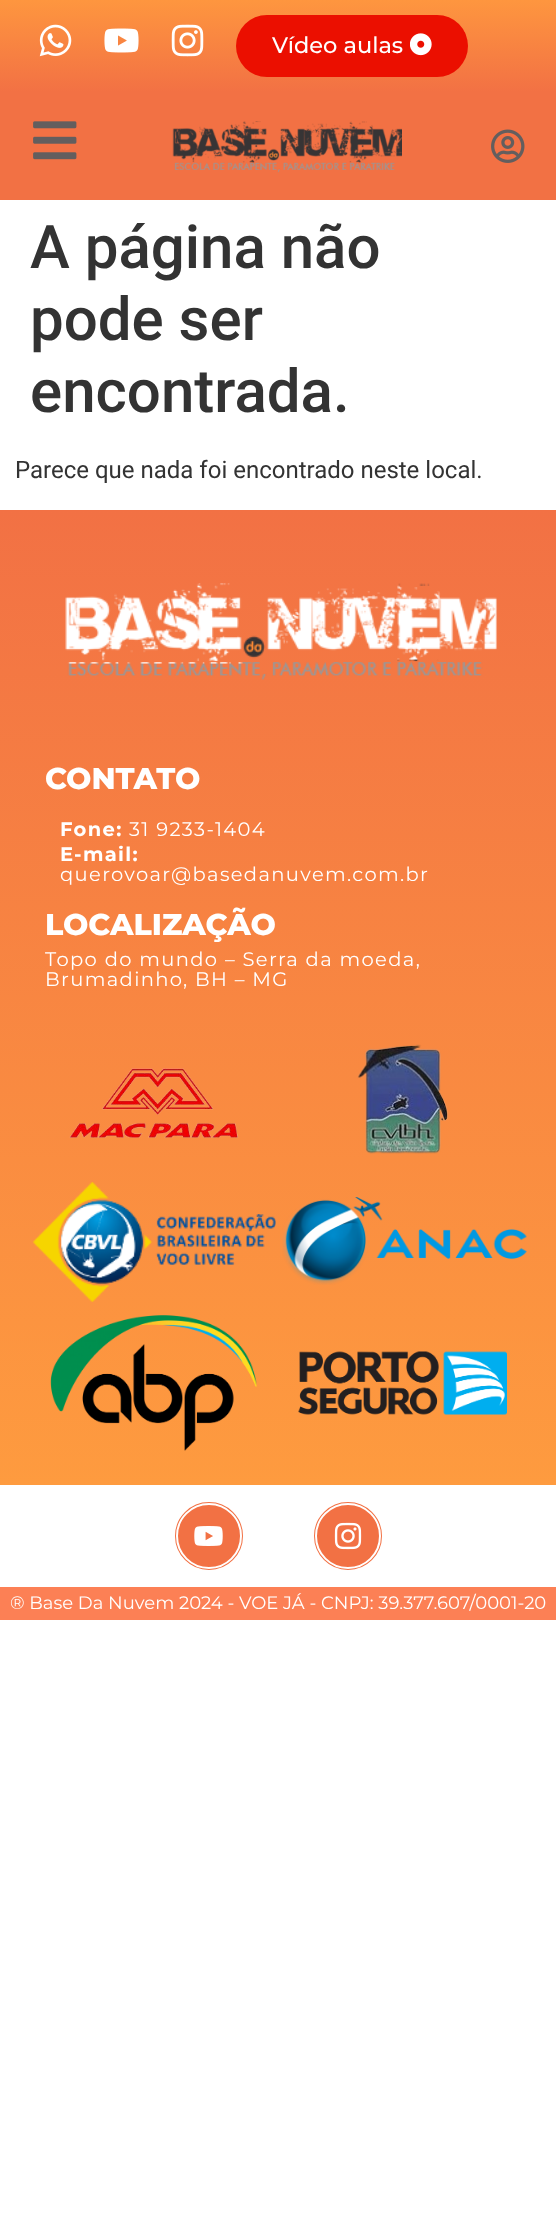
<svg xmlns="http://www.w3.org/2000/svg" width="556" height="2226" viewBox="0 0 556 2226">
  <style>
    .t1 { font: 500 22.5px Montserrat; fill: #fff; }
    .t2 { font: 500 60px Roboto; fill: #333; }
    .t3 { font: 24px Roboto; fill: #333; }
    .t4 { font: 800 30px Montserrat; fill: #fff; }
    .t5 { font: bold 19.5px Montserrat; letter-spacing: 1.35px; fill: #fff; }
    .t6 { font: 19.5px Montserrat; letter-spacing: 1.35px; fill: #fff; }
    .t7 { font: 18px Montserrat; fill: #fff; }
  </style>
  <defs>
    <linearGradient id="g1" gradientUnits="userSpaceOnUse" x1="278" y1="0" x2="278" y2="92"><stop offset="0" stop-color="#fe963f"/><stop offset="1" stop-color="#f27144"/></linearGradient>
    <linearGradient id="g2" gradientUnits="userSpaceOnUse" x1="278" y1="510" x2="278" y2="1485"><stop offset="0" stop-color="#f27144"/><stop offset="1" stop-color="#fe9b3f"/></linearGradient>
  </defs>
  <rect width="100%" height="100%" fill="#fff"/>
  <rect x="0" y="0" width="556" height="92" fill="url(#g1)"/>
  <image x="39" y="24" width="33" height="33" href="images/1.png"/>
  <image x="104" y="28" width="35" height="25" href="images/2.png"/>
  <image x="171" y="24" width="33" height="33" href="images/3.png"/>
  <rect x="236" y="15" width="232" height="62" rx="31" fill="#eb0f00"/>
  <text x="272" y="53" class="t1">Vídeo aulas</text>
  <image x="410" y="33" width="22" height="23" href="images/4.png"/>
  <rect x="0" y="92" width="556" height="108" fill="#f27144"/>
  <image x="33" y="121" width="44" height="39" href="images/5.png"/>
  <image x="172" y="121" width="230" height="52" href="images/6.png"/>
  <image x="491" y="129" width="34" height="34" href="images/7.png"/>
  <text x="30" y="268" class="t2">A página não</text>
  <text x="30" y="340" class="t2">pode ser</text>
  <text x="30" y="412" class="t2">encontrada.</text>
  <text x="15" y="478" class="t3">Parece que nada foi encontrado neste local.</text>
  <rect x="0" y="510" width="556" height="975" fill="url(#g2)"/>
  <image x="65" y="583" width="432" height="97" href="images/8.png"/>
  <text x="45" y="789" class="t4">CONTATO</text>
  <text x="60" y="836" class="t5">Fone:</text>
  <text x="129" y="836" class="t6">31 9233-1404</text>
  <text x="60" y="861" class="t5">E-mail:</text>
  <text x="60" y="881" class="t6">querovoar@basedanuvem.com.br</text>
  <text x="45" y="935" class="t4">LOCALIZAÇÃO</text>
  <text x="45" y="966" class="t6">Topo do mundo – Serra da moeda,</text>
  <text x="45" y="986" class="t6">Brumadinho, BH – MG</text>
  <image x="69" y="1068" width="170" height="70" href="images/9.png"/>
  <image x="357" y="1044" width="91" height="110" href="images/10.png"/>
  <image x="33" y="1182" width="243" height="120" href="images/11.png"/>
  <image x="282" y="1197" width="245" height="88" href="images/12.png"/>
  <image x="50" y="1315" width="207" height="136" href="images/13.png"/>
  <image x="298" y="1351" width="209" height="64" href="images/14.png"/>
  <circle cx="209" cy="1536" r="35" fill="#f27144" stroke="#fff" stroke-width="2"/>
  <circle cx="209" cy="1536" r="32" fill="none" stroke="#fff" stroke-width="2"/>
  <image x="194" y="1526" width="29" height="20" href="images/15.png"/>
  <circle cx="348" cy="1536" r="35" fill="#f27144" stroke="#fff" stroke-width="2"/>
  <circle cx="348" cy="1536" r="32" fill="none" stroke="#fff" stroke-width="2"/>
  <image x="334" y="1522" width="28" height="28" href="images/16.png"/>
  <rect x="0" y="1587" width="556" height="33" fill="#fc8055"/>
  <text x="10" y="1609" class="t7">® Base Da Nuvem 2024 - VOE JÁ - CNPJ: 39.377.607/0001-20</text>
</svg>
